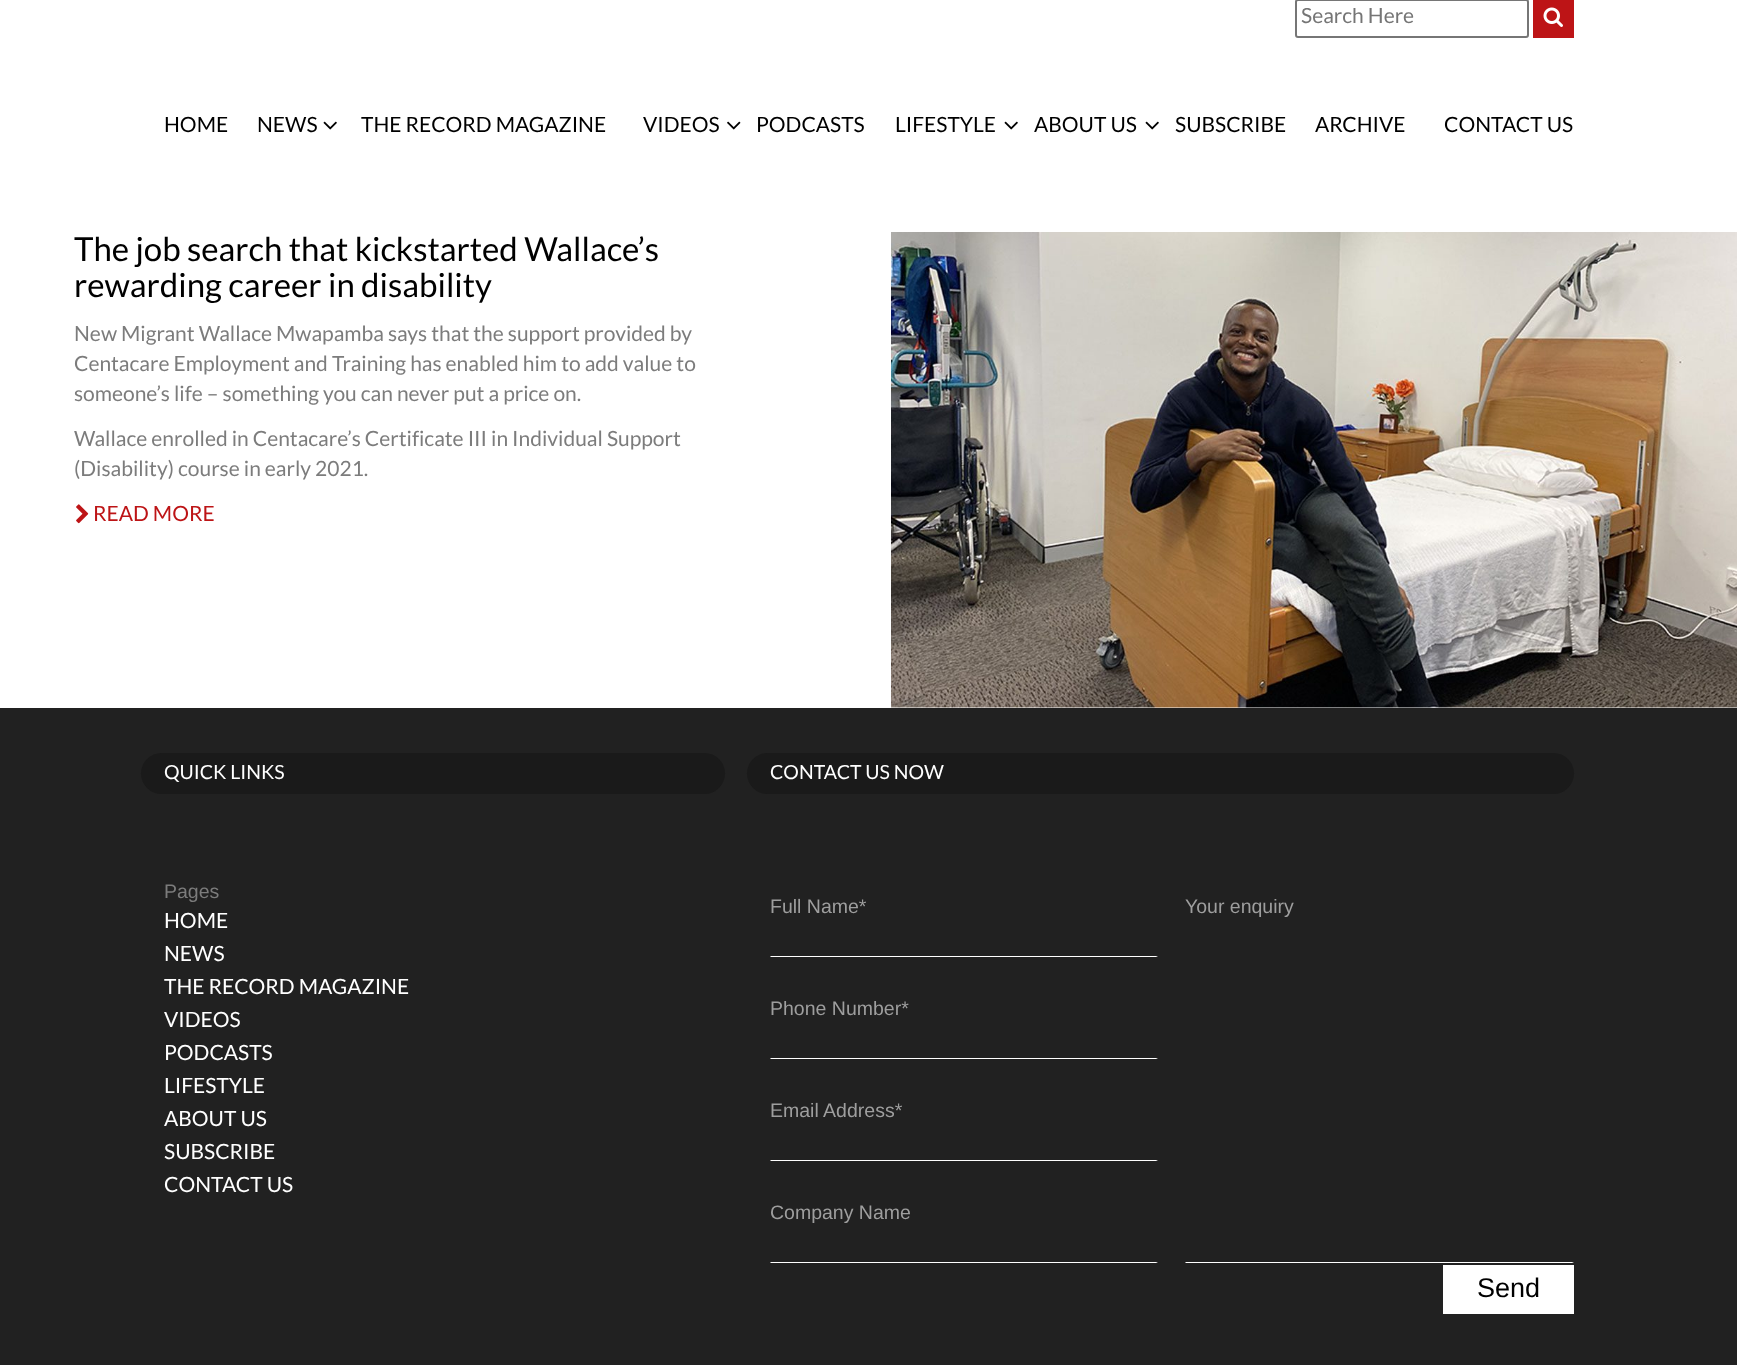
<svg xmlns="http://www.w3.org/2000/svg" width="1737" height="1365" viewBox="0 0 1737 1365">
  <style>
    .t1 { font: 21px Lato; fill: #757575; }
    .t2 { font: 21px Lato; fill: #000; }
    .t3 { font: 33px Lato; fill: #000; }
    .t4 { font: 21px Lato; fill: #7c7c7c; }
    .t5 { font: 21px Lato; fill: #bd1416; }
    .t6 { font: 19.5px Lato; fill: #fff; }
    .t7 { font: 19.5px Liberation Sans; fill: #7c7c7c; }
    .t8 { font: 21px Lato; fill: #fff; }
    .t9 { font: 19.5px Liberation Sans; fill: #9e9e9e; }
    .t10 { font: 27px Liberation Sans; fill: #000; }
  </style>
  <defs>
    <clipPath id="clip1"><rect x="1301" y="8" width="222" height="21"/></clipPath>
  </defs>
  <rect width="100%" height="100%" fill="#fff"/>
  <rect x="1296" y="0" width="232" height="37" rx="2" fill="none" stroke="#767676" stroke-width="2"/>
  <g clip-path="url(#clip1)">
    <text x="1301" y="23" class="t1">Search Here</text>
  </g>
  <rect x="1533" y="0" width="41" height="38" fill="#bd1416"/>
  <image x="1543" y="7" width="20" height="20" href="images/1.png"/>
  <text x="164" y="132" class="t2">HOME</text>
  <text x="257" y="132" class="t2">NEWS</text>
  <image x="323" y="121" width="14" height="9" href="images/2.png"/>
  <text x="361" y="132" class="t2">THE RECORD MAGAZINE</text>
  <text x="643" y="132" class="t2">VIDEOS</text>
  <image x="727" y="121" width="14" height="9" href="images/3.png"/>
  <text x="756" y="132" class="t2">PODCASTS</text>
  <text x="895" y="132" class="t2">LIFESTYLE</text>
  <image x="1004" y="121" width="14" height="9" href="images/2.png"/>
  <text x="1034" y="132" class="t2">ABOUT US</text>
  <image x="1145" y="121" width="14" height="9" href="images/2.png"/>
  <text x="1175" y="132" class="t2">SUBSCRIBE</text>
  <text x="1315" y="132" class="t2">ARCHIVE</text>
  <text x="1444" y="132" class="t2">CONTACT US</text>
  <text x="74" y="261" class="t3">The job search that kickstarted Wallace’s</text>
  <text x="74" y="297" class="t3">rewarding career in disability</text>
  <text x="74" y="341" class="t4">New Migrant Wallace Mwapamba says that the support provided by</text>
  <text x="74" y="371" class="t4">Centacare Employment and Training has enabled him to add value to</text>
  <text x="74" y="401" class="t4">someone’s life – something you can never put a price on.</text>
  <text x="74" y="446" class="t4">Wallace enrolled in Centacare’s Certificate III in Individual Support</text>
  <text x="74" y="476" class="t4">(Disability) course in early 2021.</text>
  <image x="76" y="504" width="13" height="20" href="images/4.png"/>
  <text x="93" y="521" class="t5">READ MORE</text>
  <image x="891" y="232" width="846" height="476" href="images/5.png"/>
  <rect x="0" y="708" width="1737" height="657" fill="#212121"/>
  <rect x="141" y="753" width="584" height="41" rx="20.5" fill="#1a1a1a"/>
  <text x="164" y="779" class="t6">QUICK LINKS</text>
  <text x="164" y="898" class="t7">Pages</text>
  <text x="164" y="928" class="t8">HOME</text>
  <text x="164" y="961" class="t8">NEWS</text>
  <text x="164" y="994" class="t8">THE RECORD MAGAZINE</text>
  <text x="164" y="1027" class="t8">VIDEOS</text>
  <text x="164" y="1060" class="t8">PODCASTS</text>
  <text x="164" y="1093" class="t8">LIFESTYLE</text>
  <text x="164" y="1126" class="t8">ABOUT US</text>
  <text x="164" y="1159" class="t8">SUBSCRIBE</text>
  <text x="164" y="1192" class="t8">CONTACT US</text>
  <rect x="747" y="753" width="827" height="41" rx="20.5" fill="#1a1a1a"/>
  <text x="770" y="779" class="t6">CONTACT US NOW</text>
  <text x="770" y="913" class="t9">Full Name*</text>
  <path d="M1158 957H770L771 956H1156Z" fill="#fff"/>
  <text x="770" y="1015" class="t9">Phone Number*</text>
  <path d="M1158 1059H770L771 1058H1156Z" fill="#fff"/>
  <text x="770" y="1117" class="t9">Email Address*</text>
  <path d="M1158 1161H770L771 1160H1156Z" fill="#fff"/>
  <text x="770" y="1219" class="t9">Company Name</text>
  <path d="M1158 1263H770L771 1262H1156Z" fill="#fff"/>
  <text x="1185" y="913" class="t9">Your enquiry</text>
  <path d="M1574 1263H1185L1186 1262H1572Z" fill="#fff"/>
  <rect x="1443" y="1265" width="131" height="49" fill="#fff"/>
  <text x="1477" y="1297" class="t10">Send</text>
</svg>
